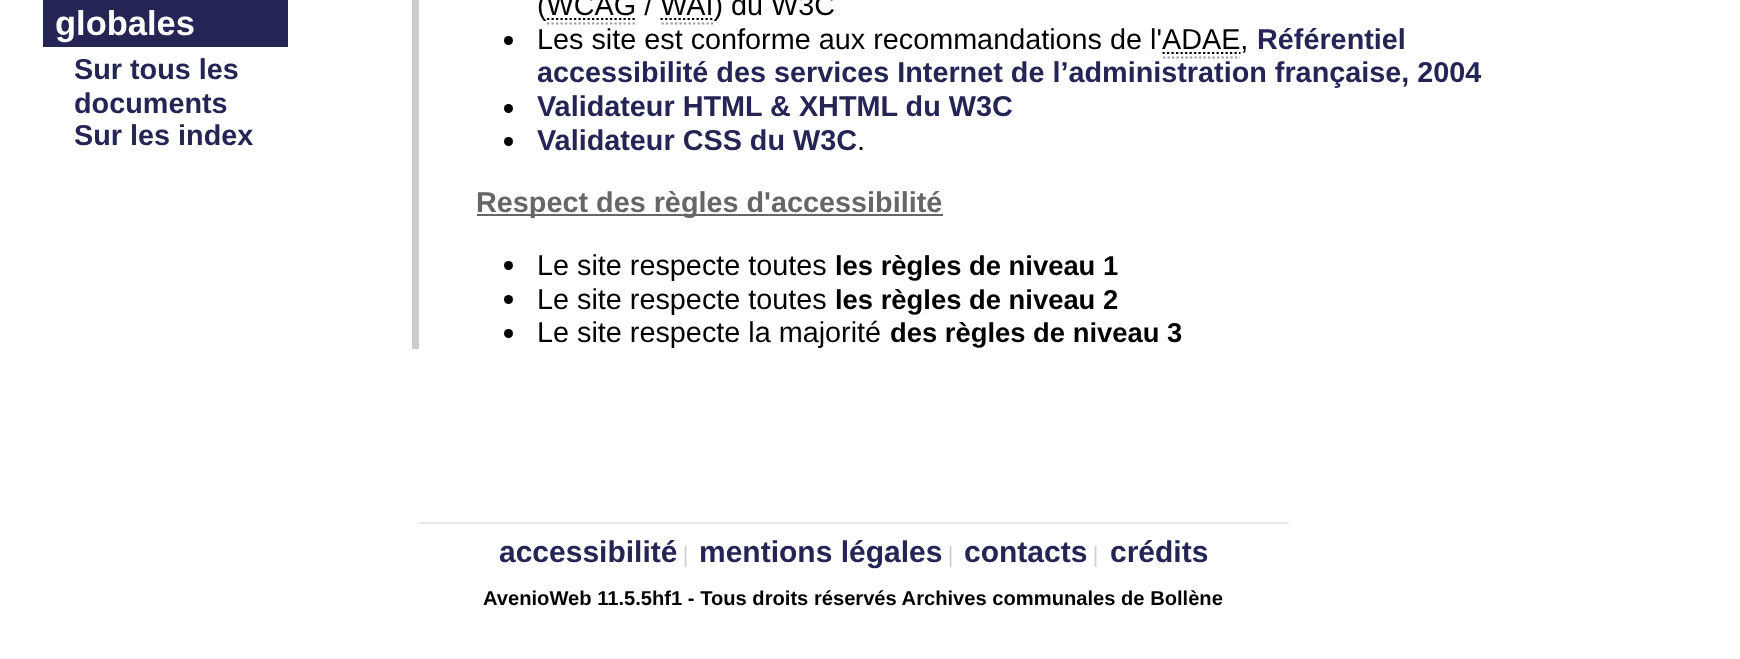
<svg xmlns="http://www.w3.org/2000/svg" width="1740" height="659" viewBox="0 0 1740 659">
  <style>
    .t1 { font: bold 34.5px Liberation Sans; fill: #fff; }
    .t2 { font: bold 28.8px Liberation Sans; fill: #242455; }
    .t3 { font: 28.8px Liberation Sans; fill: #000; }
    .t4 { font: bold 28.8px Liberation Sans; fill: #666; }
    .t5 { font: bold 27.4px Liberation Sans; fill: #000; }
    .t6 { font: bold 30px Liberation Sans; fill: #242455; }
    .t7 { font: bold 23px Liberation Serif; fill: #ccc; }
    .t8 { font: bold 20.15px Liberation Sans; fill: #000; }
  </style>
  <rect width="100%" height="100%" fill="#fff"/>
  <rect x="43" y="0" width="245" height="47" fill="#242455"/>
  <text x="55" y="35" class="t1">globales</text>
  <text x="74" y="79" class="t2">Sur tous les</text>
  <text x="74" y="113" class="t2">documents</text>
  <text x="74" y="145" class="t2">Sur les index</text>
  <rect x="412" y="0" width="7" height="349" fill="#ccc"/>
  <text x="537" y="15" class="t3">(WCAG / WAI) du W3C</text>
  <path d="M547 19H636.5" fill="none" stroke="#000" stroke-width="2.2" stroke-dasharray="2.25 2.25"/>
  <path d="M660.5 19H714" fill="none" stroke="#000" stroke-width="2.2" stroke-dasharray="2.25 2.25"/>
  <path d="M547 23.5H637" fill="none" stroke="#999" stroke-width="2.2" stroke-dasharray="2.25 2.25"/>
  <path d="M661.5 23.5H713" fill="none" stroke="#999" stroke-width="2.2" stroke-dasharray="2.25 2.25"/>
  <circle cx="508.5" cy="40.5" r="4.5" fill="#000"/>
  <text x="537" y="49" class="t3">Les site est conforme aux recommandations de l'ADAE,</text>
  <text x="1257" y="49" class="t2">Référentiel</text>
  <path d="M1162.5 53H1240.5" fill="none" stroke="#000" stroke-width="2.2" stroke-dasharray="2.25 2.25"/>
  <path d="M1163 57.5H1240" fill="none" stroke="#999" stroke-width="2.2" stroke-dasharray="2.25 2.25"/>
  <text x="537" y="82" class="t2">accessibilité des services Internet de l’administration française, 2004</text>
  <circle cx="508.5" cy="108.5" r="4.5" fill="#000"/>
  <text x="537" y="116" class="t2">Validateur HTML &amp; XHTML du W3C</text>
  <circle cx="508.5" cy="141.5" r="4.5" fill="#000"/>
  <text x="537" y="150" class="t2">Validateur CSS du W3C</text>
  <text x="857" y="150" class="t3">.</text>
  <rect x="477" y="214" width="466" height="2" fill="#666"/>
  <text x="476" y="212" class="t4">Respect des règles d'accessibilité</text>
  <circle cx="508.5" cy="265.5" r="4.5" fill="#000"/>
  <text x="537" y="275" class="t3">Le site respecte toutes</text>
  <text x="835" y="275" class="t5">les règles de niveau 1</text>
  <circle cx="508.5" cy="299.5" r="4.5" fill="#000"/>
  <text x="537" y="309" class="t3">Le site respecte toutes</text>
  <text x="835" y="309" class="t5">les règles de niveau 2</text>
  <circle cx="508.5" cy="333.5" r="4.5" fill="#000"/>
  <text x="537" y="342" class="t3">Le site respecte la majorité</text>
  <text x="890" y="342" class="t5">des règles de niveau 3</text>
  <rect x="419" y="522" width="870" height="2" fill="#e8e8e8"/>
  <text x="499" y="562" class="t6">accessibilité</text>
  <text x="683" y="562" class="t7">|</text>
  <text x="699" y="562" class="t6">mentions légales</text>
  <text x="948" y="562" class="t7">|</text>
  <text x="964" y="562" class="t6">contacts</text>
  <text x="1093" y="562" class="t7">|</text>
  <text x="1110" y="562" class="t6">crédits</text>
  <text x="483" y="605" class="t8">AvenioWeb 11.5.5hf1 - Tous droits réservés Archives communales de Bollène</text>
</svg>
